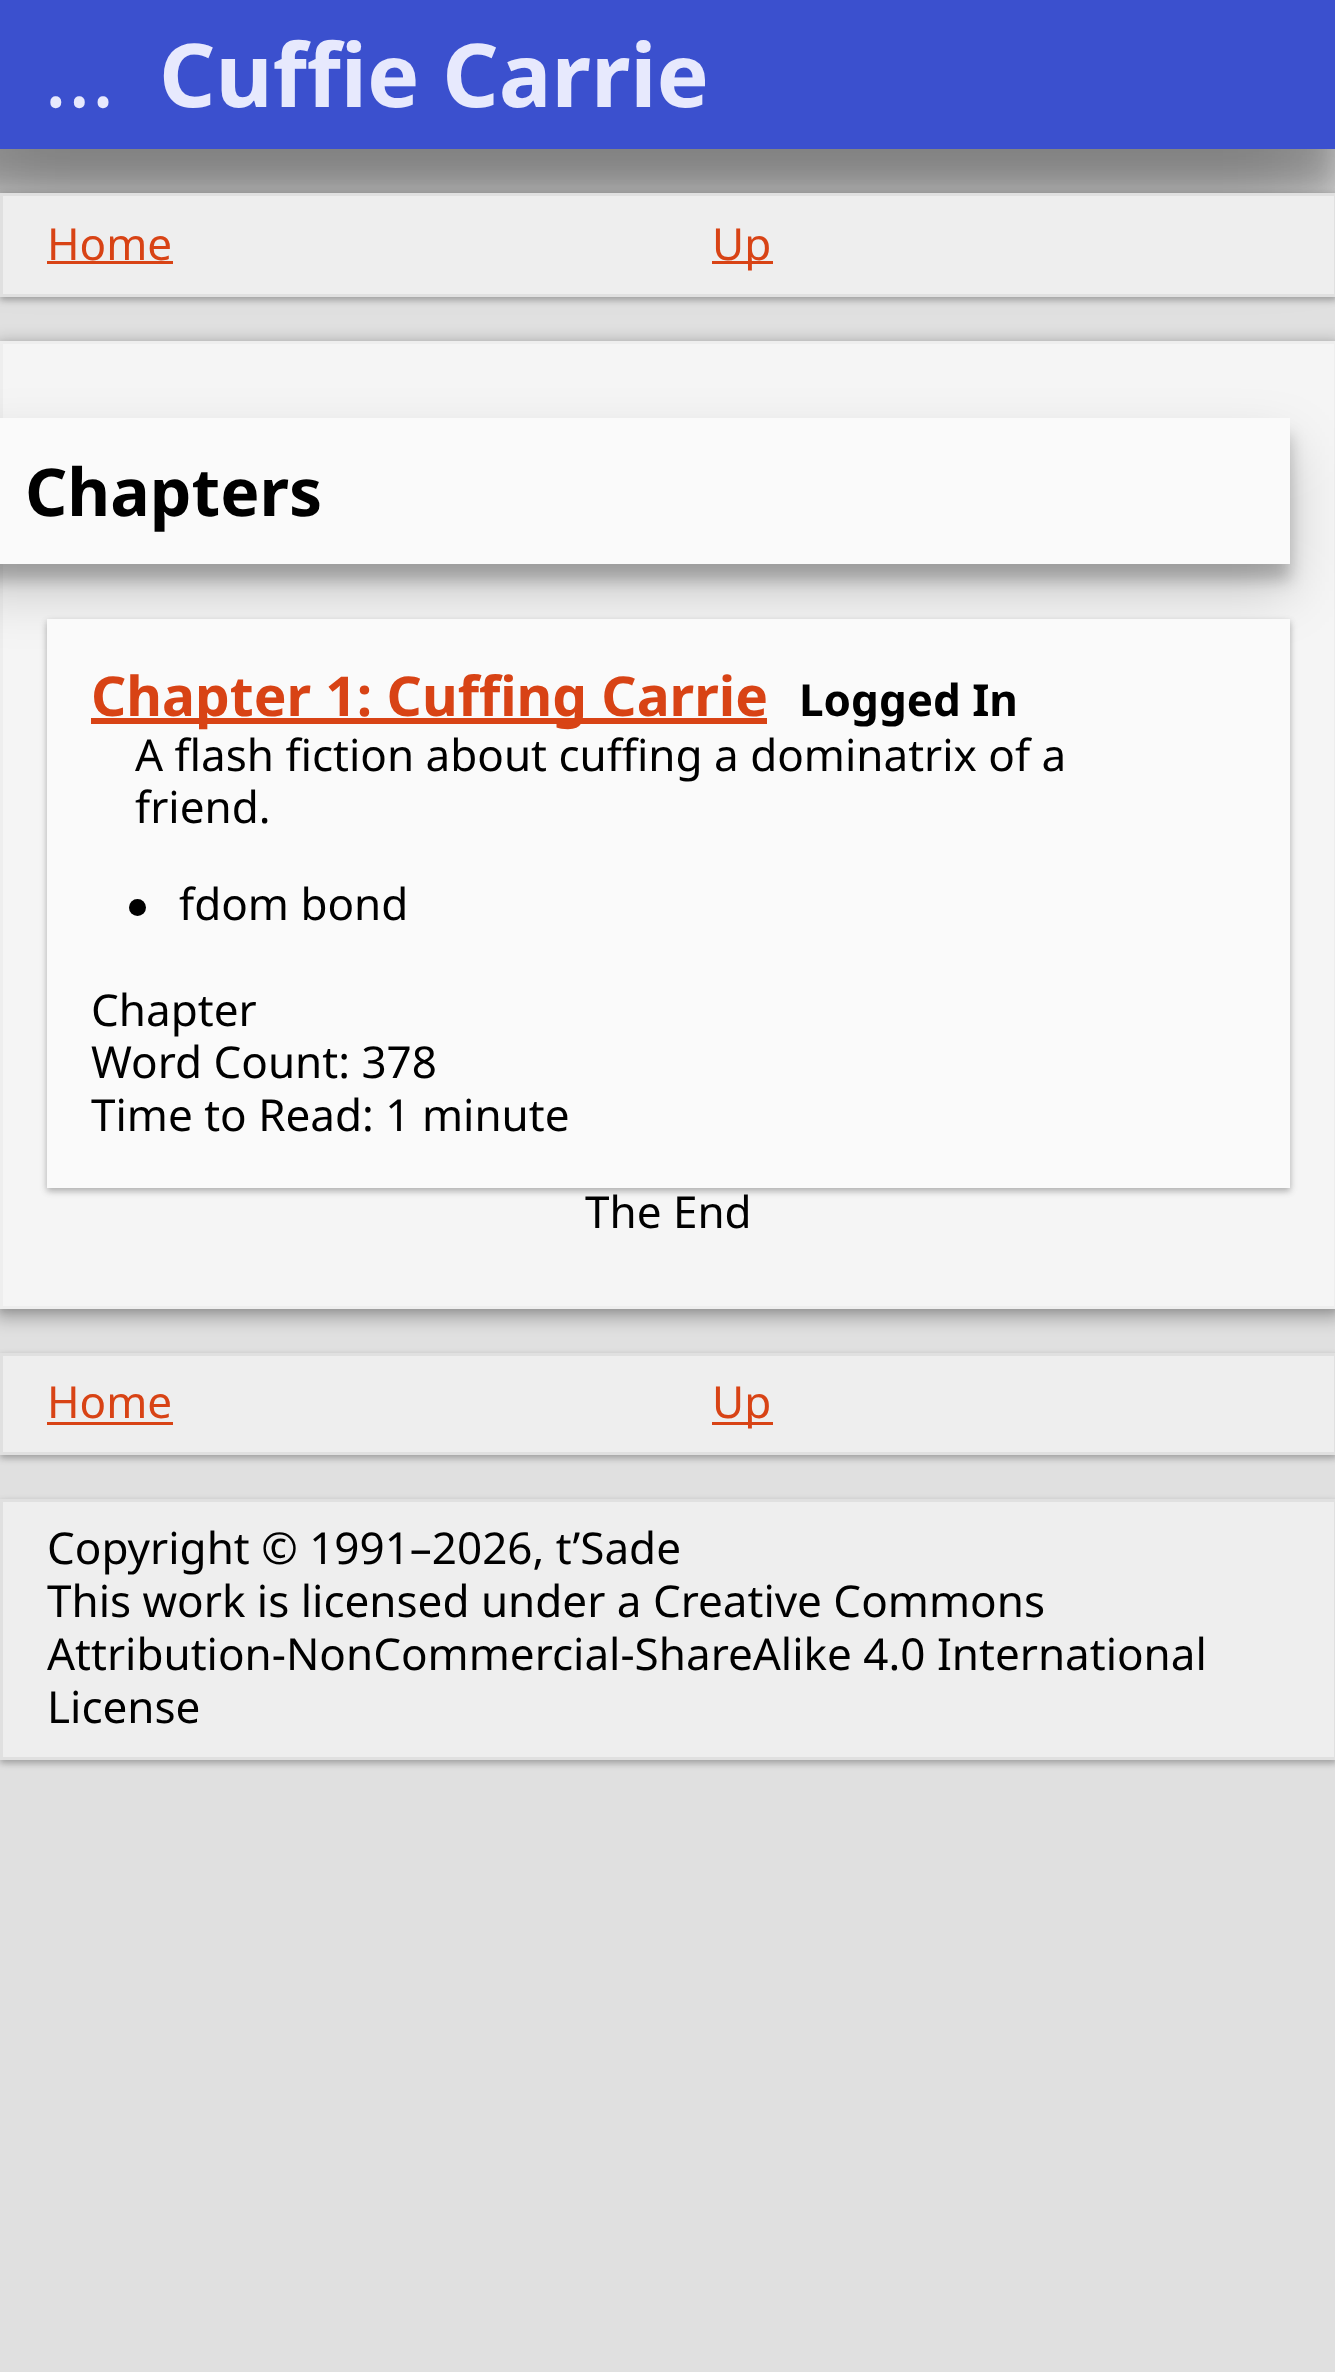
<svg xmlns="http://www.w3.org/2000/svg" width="1335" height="2372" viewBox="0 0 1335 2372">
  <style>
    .t1 { font: 88px Noto Sans; fill: #e7e9fd; }
    .t2 { font: bold 88px Noto Sans; fill: #e7e9fd; }
    .t3 { font: 44px Noto Sans; fill: #d84315; }
    .t4 { font: bold 66px Noto Sans; fill: #000; }
    .t5 { font: bold 55px Noto Sans; fill: #d84315; }
    .t6 { font: bold 44px Noto Sans; fill: #000; }
    .t7 { font: 44px Noto Sans; fill: #000; }
  </style>
  <rect width="100%" height="100%" fill="#e0e0e0"/>
  <rect x="-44" y="41" width="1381" height="149" fill="#00000038" filter="blur(16.5px)"/>
  <rect x="-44" y="52" width="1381" height="149" fill="#0000004d" filter="blur(52px)"/>
  <rect x="0" y="0" width="1335" height="149" fill="#3b50ce"/>
  <text x="44" y="107" class="t1">...</text>
  <text x="159" y="107" class="t2">Cuffie Carrie</text>
  <rect x="0" y="195" width="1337" height="105" fill="#0000003d" filter="blur(3px)"/>
  <rect x="0" y="195" width="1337" height="105" fill="#00000012" filter="blur(4px)"/>
  <rect x="1.5" y="194.5" width="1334" height="101" fill="#eee" stroke="#e0e0e0" stroke-width="3"/>
  <text x="47" y="260" class="t3">Home</text>
  <rect x="47" y="261" width="126" height="3" fill="#d84315"/>
  <rect x="712" y="261" width="61" height="3" fill="#d84315"/>
  <text x="712" y="260" class="t3">Up</text>
  <rect x="-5" y="341" width="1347" height="979" fill="#0000003b" filter="blur(8px)"/>
  <rect x="0" y="344" width="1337" height="968" fill="#00000021" filter="blur(3px)"/>
  <rect x="1.5" y="342.5" width="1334" height="965" fill="#f5f5f5" stroke="#eee" stroke-width="3"/>
  <rect x="-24" y="435" width="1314" height="145" fill="#0000003b" filter="blur(8px)"/>
  <rect x="-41" y="446" width="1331" height="145" fill="#00000030" filter="blur(27.5px)"/>
  <rect x="0" y="418" width="1290" height="146" fill="#fafafa"/>
  <text x="25" y="516" class="t4">Chapters</text>
  <rect x="47" y="622" width="1243" height="569" fill="#0000003d" filter="blur(3px)"/>
  <rect x="47" y="622" width="1243" height="569" fill="#00000012" filter="blur(4px)"/>
  <rect x="47" y="619" width="1243" height="569" fill="#fafafa"/>
  <rect x="91" y="718" width="676" height="6" fill="#d84315"/>
  <text x="91" y="716" class="t5">Chapter 1: Cuffing Carrie</text>
  <text x="799" y="716" class="t6">Logged In</text>
  <text x="135" y="771" class="t7">A flash fiction about cuffing a dominatrix of a</text>
  <text x="135" y="823" class="t7">friend.</text>
  <circle cx="137.5" cy="907.5" r="8.5" fill="#000"/>
  <text x="179" y="920" class="t7">fdom bond</text>
  <text x="91" y="1026" class="t7">Chapter</text>
  <text x="91" y="1078" class="t7">Word Count: 378</text>
  <text x="91" y="1131" class="t7">Time to Read: 1 minute</text>
  <text x="585" y="1228" class="t7">The End</text>
  <rect x="0" y="1356" width="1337" height="102" fill="#0000003d" filter="blur(3px)"/>
  <rect x="0" y="1356" width="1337" height="102" fill="#00000012" filter="blur(4px)"/>
  <rect x="1.5" y="1354.5" width="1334" height="99" fill="#eee" stroke="#e0e0e0" stroke-width="3"/>
  <text x="47" y="1418" class="t3">Home</text>
  <rect x="47" y="1422" width="126" height="3" fill="#d84315"/>
  <rect x="712" y="1422" width="61" height="3" fill="#d84315"/>
  <text x="712" y="1418" class="t3">Up</text>
  <rect x="0" y="1502" width="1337" height="261" fill="#0000003d" filter="blur(3px)"/>
  <rect x="0" y="1502" width="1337" height="261" fill="#00000012" filter="blur(4px)"/>
  <rect x="1.5" y="1500.5" width="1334" height="258" fill="#eee" stroke="#e0e0e0" stroke-width="3"/>
  <text x="47" y="1564" class="t7">Copyright © 1991–2026, t’Sade</text>
  <text x="47" y="1617" class="t7">This work is licensed under a Creative Commons</text>
  <text x="47" y="1670" class="t7">Attribution-NonCommercial-ShareAlike 4.0 International</text>
  <text x="47" y="1723" class="t7">License</text>
</svg>
